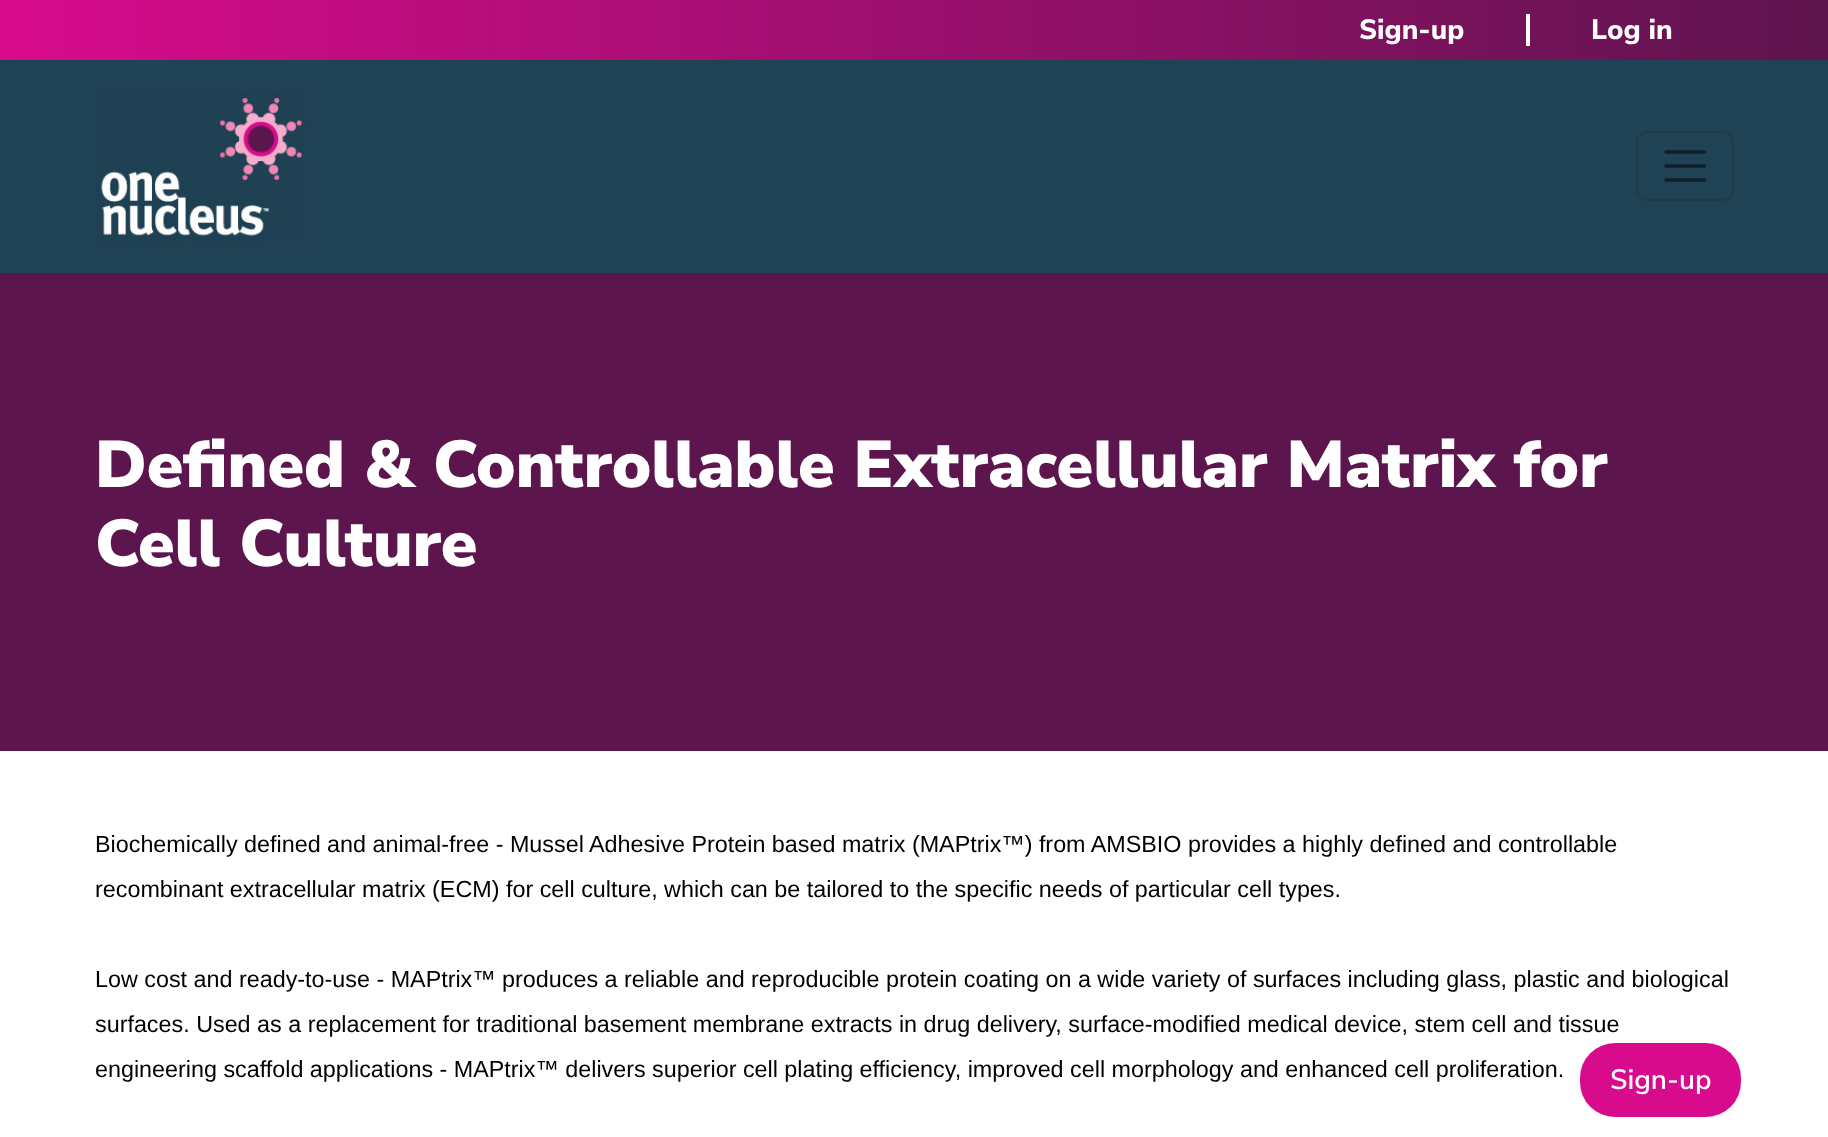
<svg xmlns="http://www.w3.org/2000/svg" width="1828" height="1137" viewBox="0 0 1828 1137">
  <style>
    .t1 { font: 800 28px Nunito Sans; fill: #fff; }
    .t2 { font: 900 65.9px Nunito Sans; fill: #fff; }
    .t3 { font: 23.33px Liberation Sans; fill: #000; }
    .t4 { font: 600 28px Nunito Sans; fill: #fff; }
  </style>
  <defs>
    <linearGradient id="g1" gradientUnits="userSpaceOnUse" x1="0" y1="30" x2="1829" y2="30"><stop offset="0" stop-color="#d80b8c"/><stop offset="1" stop-color="#5e144e"/></linearGradient>
  </defs>
  <rect width="100%" height="100%" fill="#fff"/>
  <rect x="0" y="0" width="1828" height="60" fill="url(#g1)"/>
  <rect x="1526" y="14" width="4" height="32" fill="#fff"/>
  <text x="1359" y="39" class="t1">Sign-up</text>
  <text x="1591" y="39" class="t1">Log in</text>
  <rect x="0" y="60" width="1828" height="213" fill="#204255"/>
  <image x="96" y="91" width="210" height="151" href="images/1.png"/>
  <rect x="1637" y="132" width="96" height="68" rx="10" fill="none" stroke="#1d3b4d" stroke-width="2"/>
  <path d="M1666 152H1704.5M1666 166H1704.5M1666 180H1704.5" fill="none" stroke="#10212b" stroke-width="3.5" stroke-linecap="round"/>
  <rect x="0" y="273" width="1828" height="478" fill="#5d154e"/>
  <text x="95" y="487" class="t2">Defined &amp; Controllable Extracellular Matrix for</text>
  <text x="95" y="566" class="t2">Cell Culture</text>
  <text x="95" y="852" class="t3">Biochemically defined and animal-free - Mussel Adhesive Protein based matrix (MAPtrix™) from AMSBIO provides a highly defined and controllable</text>
  <text x="95" y="897" class="t3">recombinant extracellular matrix (ECM) for cell culture, which can be tailored to the specific needs of particular cell types.</text>
  <text x="95" y="987" class="t3">Low cost and ready-to-use - MAPtrix™ produces a reliable and reproducible protein coating on a wide variety of surfaces including glass, plastic and biological</text>
  <text x="95" y="1032" class="t3">surfaces. Used as a replacement for traditional basement membrane extracts in drug delivery, surface-modified medical device, stem cell and tissue</text>
  <text x="95" y="1077" class="t3">engineering scaffold applications - MAPtrix™ delivers superior cell plating efficiency, improved cell morphology and enhanced cell proliferation.</text>
  <rect x="1580" y="1043" width="161" height="74" rx="35" fill="#d80b8c"/>
  <text x="1610" y="1089" class="t4">Sign-up</text>
</svg>
